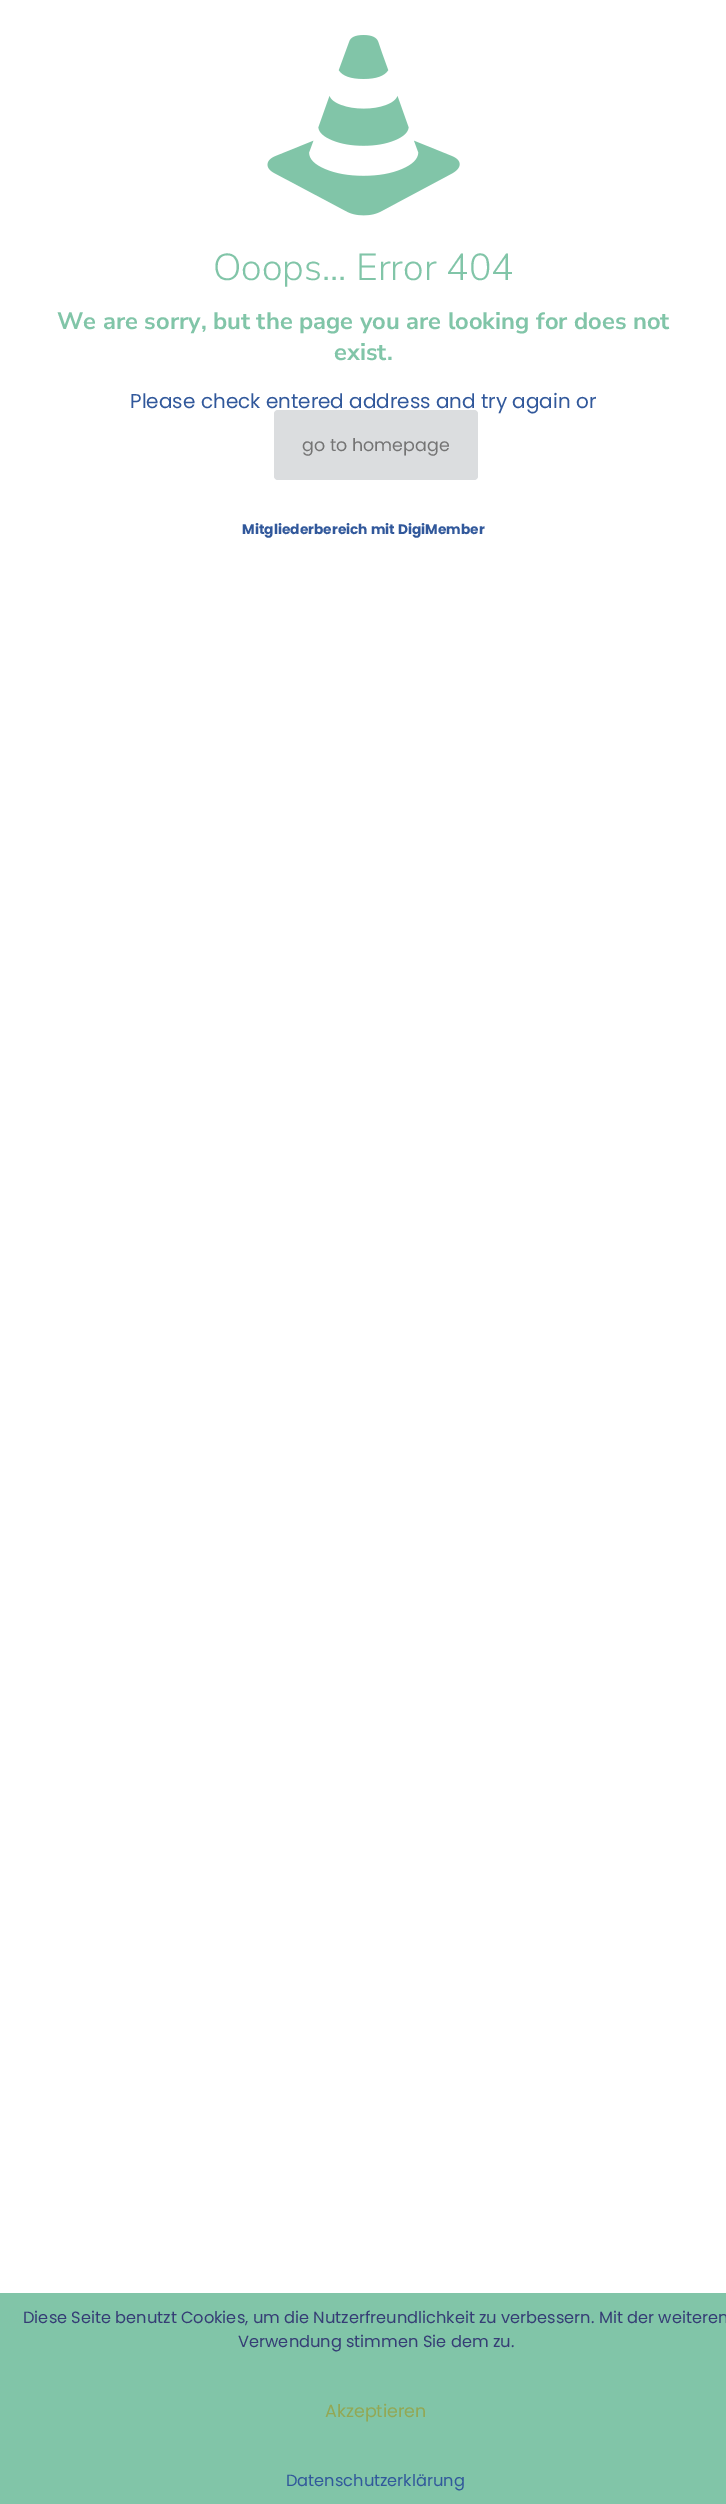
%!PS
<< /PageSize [726 2504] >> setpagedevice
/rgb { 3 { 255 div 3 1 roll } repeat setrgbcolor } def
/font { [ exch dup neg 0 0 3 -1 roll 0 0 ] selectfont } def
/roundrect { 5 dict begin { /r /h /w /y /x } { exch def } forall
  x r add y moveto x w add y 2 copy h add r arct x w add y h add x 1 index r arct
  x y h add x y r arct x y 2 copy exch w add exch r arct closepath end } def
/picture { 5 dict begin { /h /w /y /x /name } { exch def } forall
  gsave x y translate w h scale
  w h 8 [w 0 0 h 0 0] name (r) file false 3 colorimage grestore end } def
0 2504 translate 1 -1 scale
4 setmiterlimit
255 255 255 rgb
0 0 726 2504 rectfill
(img/1.rgb) 267 35 193 181 picture
129 197 168 rgb
0 2293 726 211 rectfill
/NunitoSans-Light 37.5 font
213 280 moveto (Ooops... Error 404) show
/NunitoSans-Bold 23.75 font
57 329 moveto (We are sorry, but the page you are looking for does not) show
334 360 moveto (exist.) show
/Poppins-Regular 20 font
49 88 155 rgb
130 408 moveto (Please check entered address and try again or) show
219 221 223 rgb
274 410 204 70 4 roundrect fill
/Poppins-Regular 17.5 font
116 116 116 rgb
302 451 moveto (go to homepage) show
/Poppins-Bold 13.75 font
49 88 155 rgb
242 534 moveto (Mitgliederbereich mit DigiMember) show
/Poppins-Regular 16.25 font
53 61 117 rgb
23 2323 moveto (Diese Seite benutzt Cookies, um die Nutzerfreundlichkeit zu verbessern. Mit der weiteren) show
238 2347 moveto (Verwendung stimmen Sie dem zu.) show
/Poppins-Regular 17.5 font
147 168 84 rgb
325 2417 moveto (Akzeptieren) show
/Poppins-Regular 16.25 font
49 88 155 rgb
286 2486 moveto (Datenschutzerklärung) show
showpage
